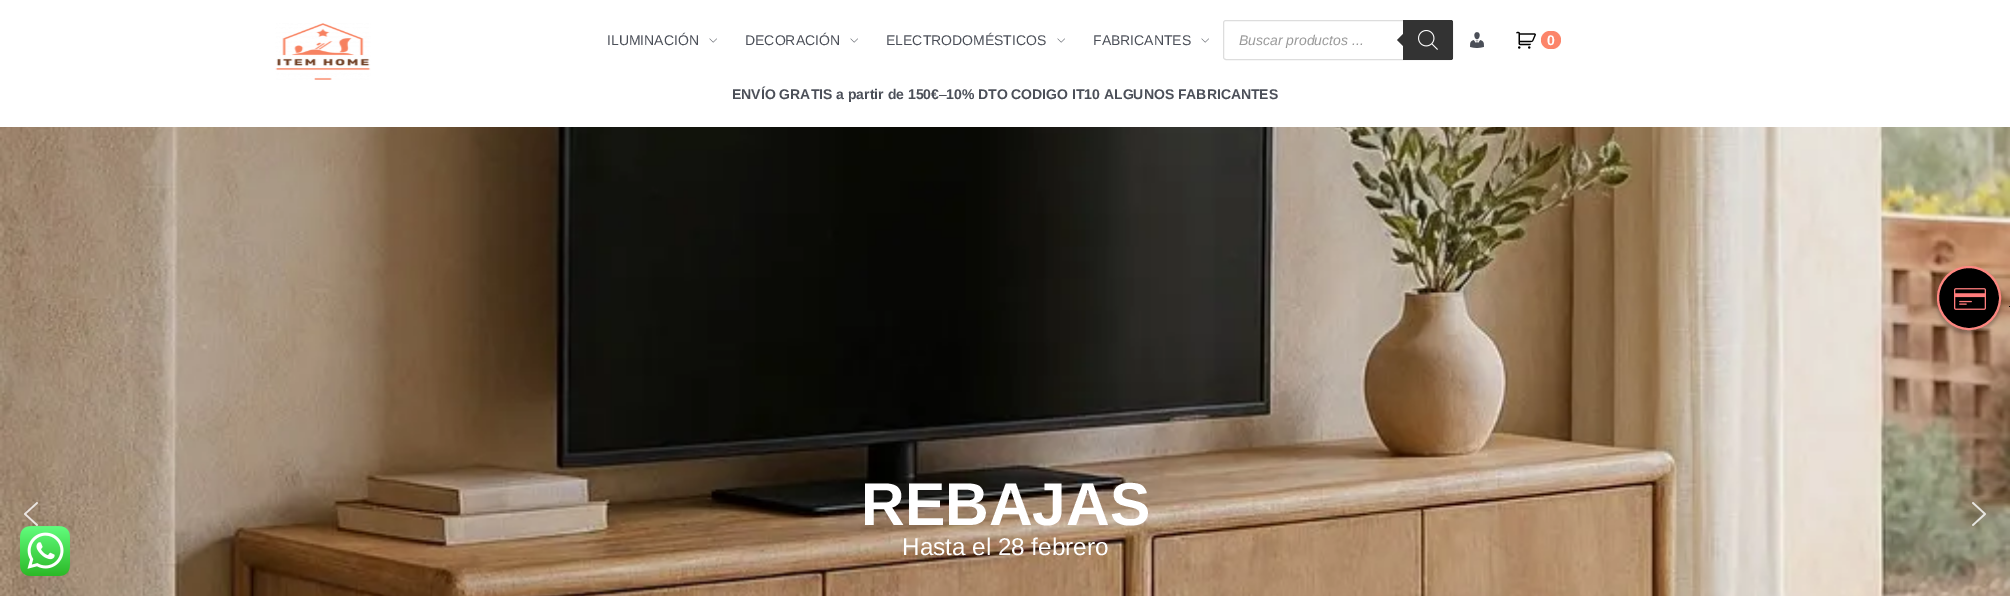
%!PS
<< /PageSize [2010 596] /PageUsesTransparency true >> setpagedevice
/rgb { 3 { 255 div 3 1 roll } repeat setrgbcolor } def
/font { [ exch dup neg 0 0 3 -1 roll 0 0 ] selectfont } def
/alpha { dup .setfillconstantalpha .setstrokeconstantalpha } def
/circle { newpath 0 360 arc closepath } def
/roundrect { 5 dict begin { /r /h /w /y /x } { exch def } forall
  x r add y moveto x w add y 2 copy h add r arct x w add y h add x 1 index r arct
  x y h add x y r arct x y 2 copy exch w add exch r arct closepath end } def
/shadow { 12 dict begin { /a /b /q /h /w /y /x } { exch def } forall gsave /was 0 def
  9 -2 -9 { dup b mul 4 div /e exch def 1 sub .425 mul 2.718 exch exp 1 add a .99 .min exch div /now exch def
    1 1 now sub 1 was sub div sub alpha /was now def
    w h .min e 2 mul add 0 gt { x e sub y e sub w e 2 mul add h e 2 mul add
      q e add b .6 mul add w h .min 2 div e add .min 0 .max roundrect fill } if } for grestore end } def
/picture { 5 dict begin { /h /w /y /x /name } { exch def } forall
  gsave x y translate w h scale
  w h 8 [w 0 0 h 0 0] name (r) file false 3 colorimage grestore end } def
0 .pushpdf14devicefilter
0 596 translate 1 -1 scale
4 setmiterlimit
255 255 255 rgb
0 0 2010 596 rectfill
(img/1.rgb) 275 23 96 57 picture
(img/2.rgb) 709 38 8 5 picture
(img/2.rgb) 850 38 8 5 picture
(img/2.rgb) 1057 38 8 5 picture
(img/2.rgb) 1201 38 8 5 picture
221 221 221 rgb
1223.5 20.5 229 39 2.5 roundrect stroke
51 51 51 rgb
1403 20 moveto 1451 20 lineto 1452 20 1453 21 1453 22 curveto 1453 58 lineto 1453 59 1452 60 1451 60 curveto 1403 60 lineto closepath fill
1405 32 moveto 1405 48 lineto 1397 40 lineto closepath fill
(img/3.rgb) 1418 30 20 20 picture
(img/4.rgb) 1470 32 14 16 picture
(img/5.rgb) 1516 31 20 18 picture
252 133 106 rgb
1541 31 20 18 9 roundrect fill
(img/7.rgb) 0 127 2010 469 picture
(img/6.rgb) 24 502 14 24 picture
(img/8.rgb) 1972 502 14 24 picture
0 0 0 rgb
1937 270 64 64 32 2 0.25 shadow
1969 298 31 circle gsave fill grestore
254 134 128 rgb
2 setlinewidth
stroke
(img/9.rgb) 1954 288 32 22 picture
0 0 0 rgb
2009 306 1 1 rectfill
(img/10.rgb) 20 526 50 50 picture
/LiberationSans-Regular 14 font
75 79 88 rgb
[
  [(ILUMINACIÓN) 607 45]
  [(DECORACIÓN) 745 45]
  [(ELECTRODOMÉSTICOS) 886 45]
  [(FABRICANTES) 1093 45]
] { aload pop moveto show } forall
/LiberationSans-Italic 14 font
153 153 153 rgb
1239 45 moveto (Buscar productos ...) show
/LiberationSans-Bold 14 font
255 255 255 rgb
1547 45 moveto (0) show
75 79 88 rgb
732 99 moveto (ENVÍO GRATIS a partir de 150€) show
/LiberationSans-Regular 14 font
939 99 moveto (–) show
/LiberationSans-Bold 14 font
946 99 moveto (10% DTO CODIGO IT10 ALGUNOS FABRICANTES) show
/LiberationSans-Bold 60.5 font
255 255 255 rgb
861 525 moveto (REBAJAS) show
/LiberationSans-Regular 24.25 font
902 555 moveto (Hasta el 28 febrero) show
.poppdf14devicefilter showpage
